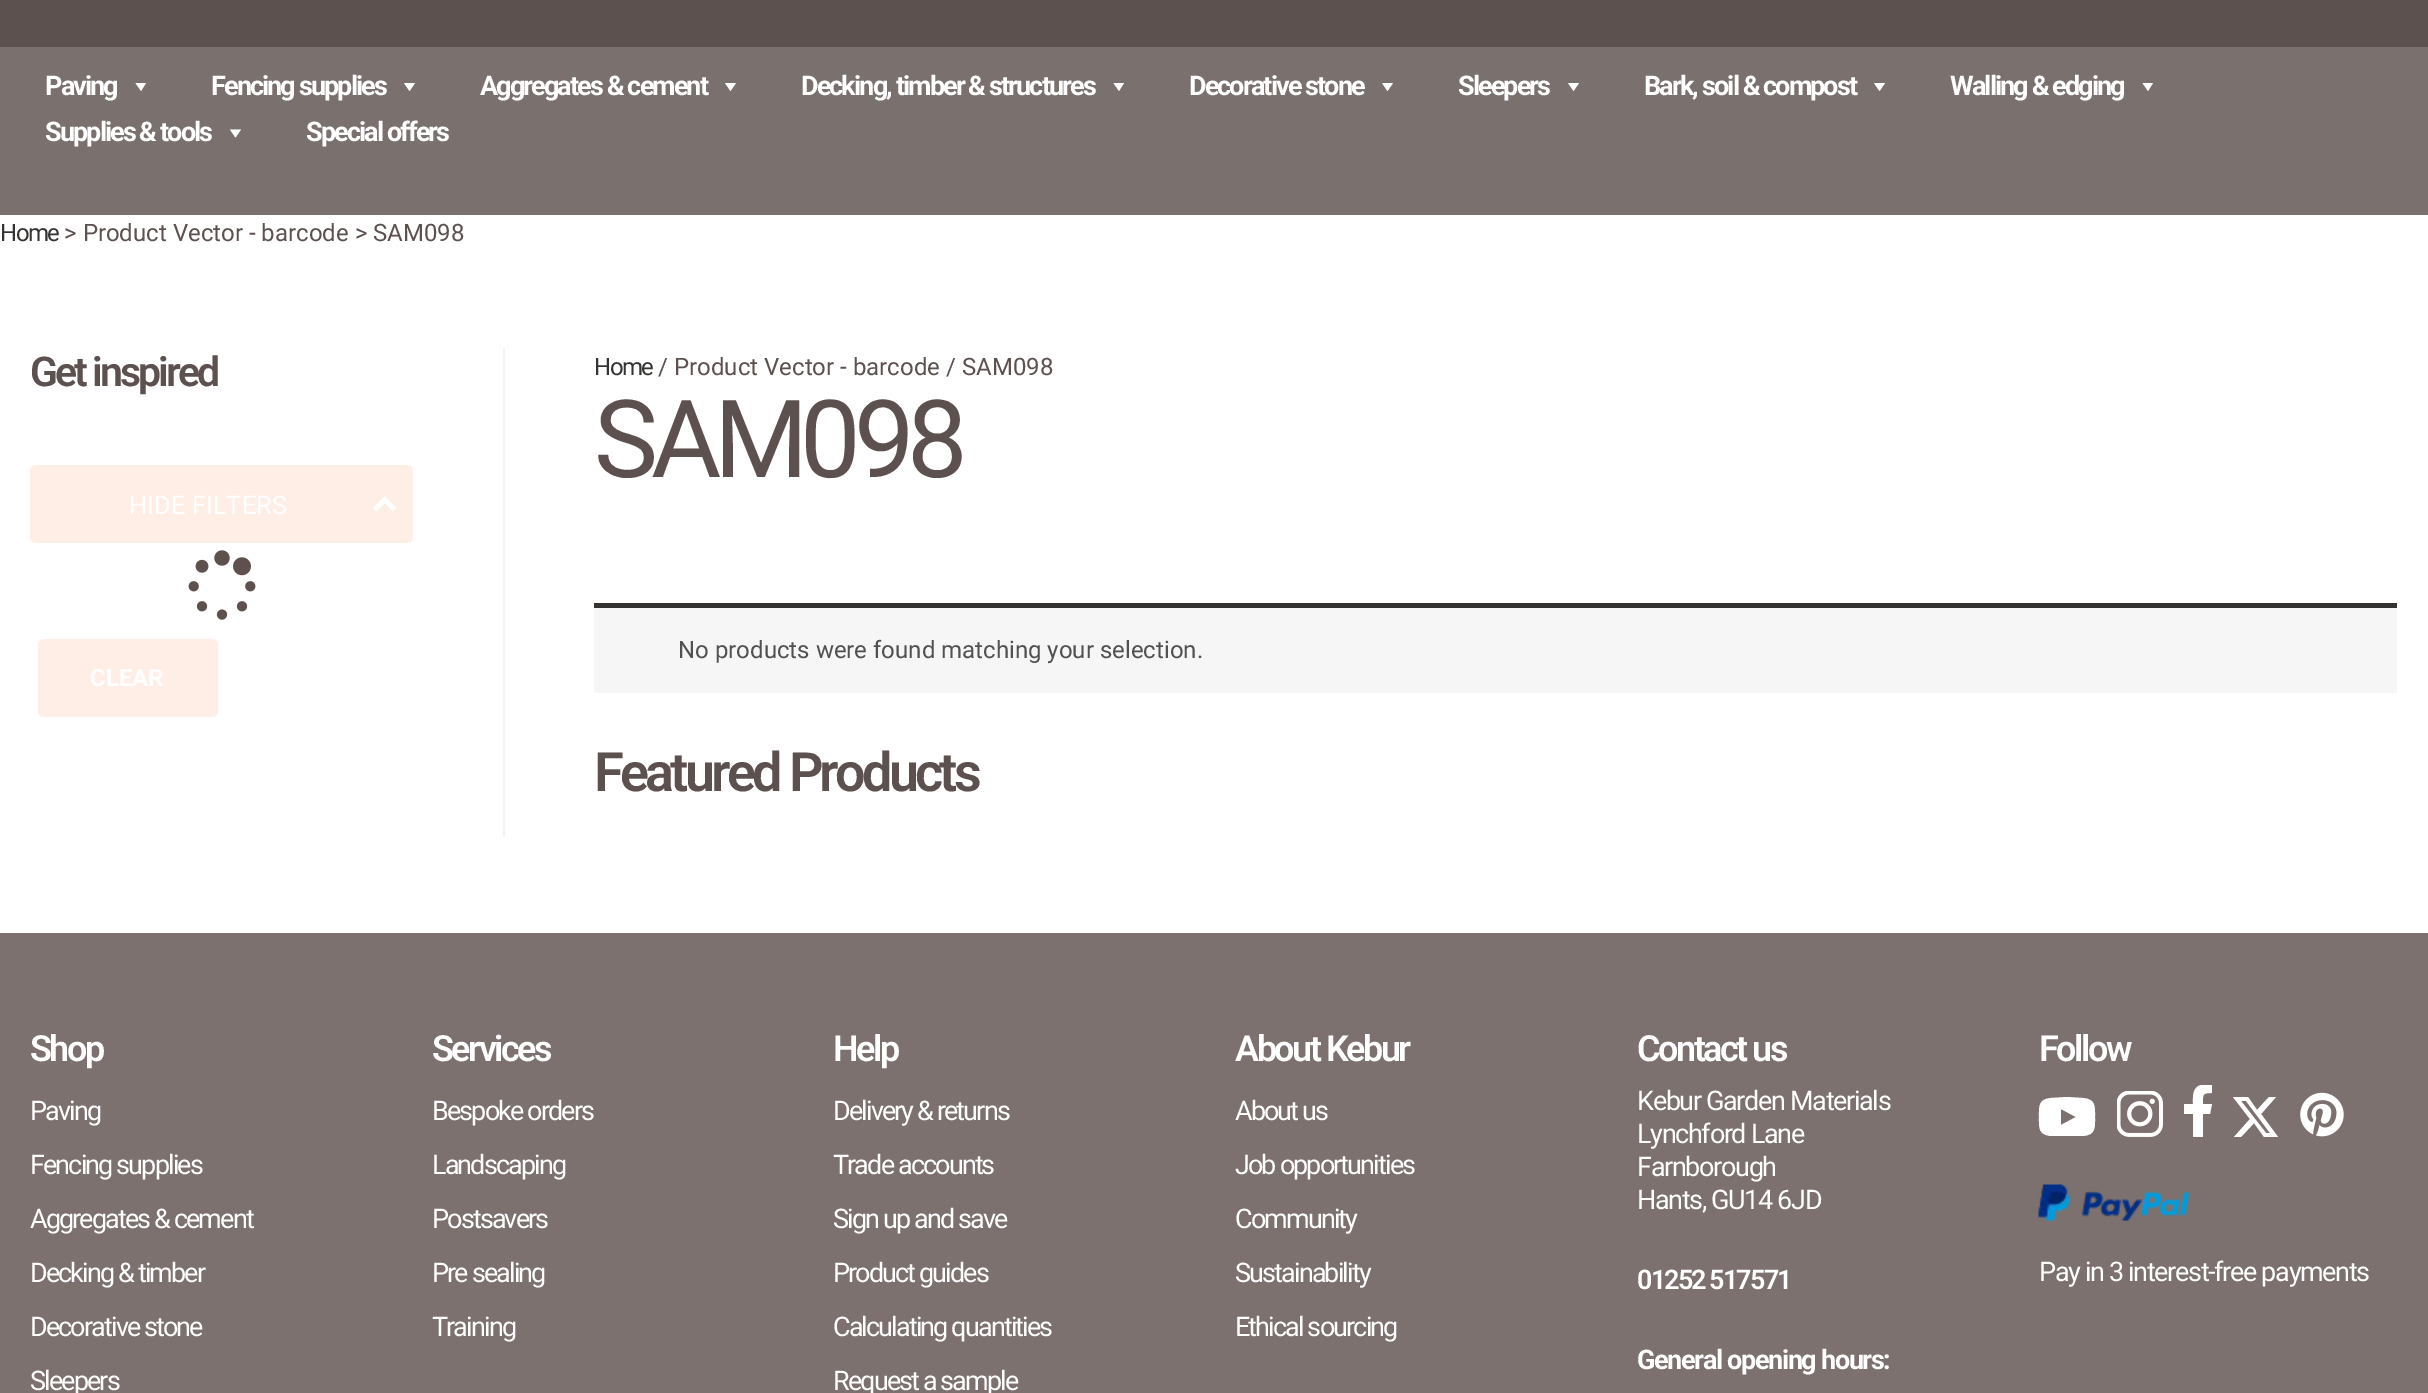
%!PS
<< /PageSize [2428 1393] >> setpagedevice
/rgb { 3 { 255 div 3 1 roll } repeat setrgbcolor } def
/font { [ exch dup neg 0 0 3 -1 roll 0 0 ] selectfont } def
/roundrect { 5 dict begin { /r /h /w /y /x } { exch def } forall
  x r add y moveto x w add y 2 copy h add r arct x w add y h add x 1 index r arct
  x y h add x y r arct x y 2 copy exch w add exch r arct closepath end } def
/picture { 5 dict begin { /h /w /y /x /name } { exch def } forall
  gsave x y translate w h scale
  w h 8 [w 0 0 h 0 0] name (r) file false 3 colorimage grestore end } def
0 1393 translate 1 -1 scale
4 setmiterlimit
255 255 255 rgb
0 0 2428 1393 rectfill
92 81 78 rgb
0 0 2428 47 rectfill
122 113 111 rgb
0 47 2428 168 rectfill
255 255 255 rgb
146 83 moveto 141 91 lineto 135.5 83 lineto closepath fill
415 83 moveto 409.5 91 lineto 404 83 lineto closepath fill
736 83 moveto 730.5 91 lineto 725 83 lineto closepath fill
1124 83 moveto 1119 91 lineto 1113.5 83 lineto closepath fill
1393 83 moveto 1387.5 91 lineto 1382 83 lineto closepath fill
1579 83 moveto 1573.5 91 lineto 1568 83 lineto closepath fill
1885 83 moveto 1879.5 91 lineto 1874 83 lineto closepath fill
2153 83 moveto 2148 91 lineto 2142.5 83 lineto closepath fill
241 129.5 moveto 235.5 137.5 lineto 230 129.5 lineto closepath fill
255 238 230 rgb
30 465 383 78 6 roundrect fill
(img/1.rgb) 373 496 24 16 picture
(img/2.rgb) 188 550 68 70 picture
38 639 180 78 6 roundrect fill
[
  [503 348 2 489 242 245 247]
  [594 608 1803 85 247 246 247]
  [594 603 1803 5 53 51 49]
  [0 933 2428 460 124 113 110]
] { aload pop rgb rectfill } forall
255 255 255 rgb
2067 1136 moveto 2051 1136 lineto 2038 1135 2039 1127 2039 1117 curveto 2039 1107 2038 1099 2051 1098 curveto 2067 1097 lineto 2083 1098 lineto 2096 1099 2095 1107 2095 1117 curveto 2095 1127 2096 1135 2083 1136 curveto closepath 2061 1109 moveto 2061 1125 lineto 2076 1117 lineto closepath fill
(img/3.rgb) 2117 1091 46 46 picture
2193 1137 moveto 2203 1137 lineto 2203 1114 lineto 2210 1114 lineto 2212 1104 lineto 2203 1104 lineto 2203 1094 2202 1093 2212 1093 curveto 2212 1085 lineto 2202 1085 lineto 2192 1086 2193 1097 2193 1104 curveto 2184 1104 lineto 2184 1114 lineto 2193 1114 lineto closepath eofill
2269 1097 moveto 2276 1097 lineto 2261 1114 lineto 2278 1137 lineto 2264 1137 lineto 2254 1123 lineto 2241 1137 lineto 2234 1137 lineto 2250 1119 lineto 2233 1097 lineto 2248 1097 lineto 2257 1110 lineto closepath 2266 1133 moveto 2270 1133 lineto 2246 1101 lineto 2241 1101 lineto closepath fill
(img/4.rgb) 2300 1092 44 45 picture
(img/5.rgb) 2038 1184 151 37 picture
/Roboto-Bold 27 font
45 95 moveto -1.9 0 (Paving) ashow
211 95 moveto -1.9 0 (Fencing supplies) ashow
480 95 moveto -1.9 0 (Aggregates & cement) ashow
801 95 moveto -1.9 0 (Decking, timber & structures) ashow
1189 95 moveto -1.9 0 (Decorative stone) ashow
1458 95 moveto -1.9 0 (Sleepers) ashow
1644 95 moveto -1.9 0 (Bark, soil & compost) ashow
1950 95 moveto -1.9 0 (Walling & edging) ashow
45 141 moveto -1.9 0 (Supplies & tools) ashow
306 141 moveto -1.9 0 (Special offers) ashow
/Roboto-Regular 24 font
53 51 49 rgb
0 241 moveto -1.5 0 (Home) ashow
92 81 78 rgb
64 241 moveto (> Product Vector - barcode > SAM098) show
/Roboto-SemiBold 41 font
30 386 moveto -2.9 0 (Get inspired) ashow
/Roboto-Regular 25.5 font
255 255 255 rgb
129 514 moveto (HIDE FILTERS) show
/Roboto-Bold 24 font
90 686 moveto (CLEAR) show
/Roboto-Regular 24 font
53 51 49 rgb
594 375 moveto -1.5 0 (Home) ashow
92 81 78 rgb
658 375 moveto (/ Product Vector - barcode / SAM098) show
/Roboto-Regular 108 font
594 477 moveto -7.5 0 (SAM098) ashow
/Roboto-Regular 24 font
81 81 81 rgb
678 658 moveto (No products were found matching your selection.) show
/Roboto-SemiBold 54 font
92 81 78 rgb
594 791 moveto -3.75 0 (Featured Products) ashow
/Roboto-SemiBold 36 font
255 255 255 rgb
30 1061 moveto -2.5 0 (Shop) ashow
/Roboto-Regular 27 font
30 1120 moveto -1.9 0 (Paving) ashow
30 1174 moveto -1.9 0 (Fencing supplies) ashow
30 1228 moveto -1.9 0 (Aggregates & cement) ashow
30 1282 moveto -1.9 0 (Decking & timber) ashow
30 1336 moveto -1.9 0 (Decorative stone) ashow
30 1390 moveto -1.9 0 (Sleepers) ashow
/Roboto-SemiBold 36 font
432 1061 moveto -2.5 0 (Services) ashow
/Roboto-Regular 27 font
432 1120 moveto -1.9 0 (Bespoke orders) ashow
432 1174 moveto -1.9 0 (Landscaping) ashow
432 1228 moveto -1.9 0 (Postsavers) ashow
432 1282 moveto -1.9 0 (Pre sealing) ashow
432 1336 moveto -1.9 0 (Training) ashow
/Roboto-SemiBold 36 font
833 1061 moveto -2.5 0 (Help) ashow
/Roboto-Regular 27 font
833 1120 moveto -1.9 0 (Delivery & returns) ashow
833 1174 moveto -1.9 0 (Trade accounts) ashow
833 1228 moveto -1.9 0 (Sign up and save) ashow
833 1282 moveto -1.9 0 (Product guides) ashow
833 1336 moveto -1.9 0 (Calculating quantities) ashow
833 1390 moveto -1.9 0 (Request a sample) ashow
/Roboto-SemiBold 36 font
1235 1061 moveto -2.5 0 (About Kebur) ashow
/Roboto-Regular 27 font
1235 1120 moveto -1.9 0 (About us) ashow
1235 1174 moveto -1.9 0 (Job opportunities) ashow
1235 1228 moveto -1.9 0 (Community) ashow
1235 1282 moveto -1.9 0 (Sustainability) ashow
1235 1336 moveto -1.9 0 (Ethical sourcing) ashow
/Roboto-SemiBold 36 font
1637 1061 moveto -2.5 0 (Contact us) ashow
/Roboto-Regular 27 font
1637 1110 moveto -1.35 0 (Kebur Garden Materials) ashow
1637 1143 moveto -1.35 0 (Lynchford Lane) ashow
1637 1176 moveto -1.35 0 (Farnborough) ashow
1637 1209 moveto -1.35 0 (Hants, GU14 6JD) ashow
/Roboto-SemiBold 27 font
1637 1289 moveto -1.9 0 (01252 517571) ashow
/Roboto-Bold 27 font
1637 1369 moveto -1.35 0 (General opening hours:) ashow
/Roboto-SemiBold 36 font
2039 1061 moveto -2.5 0 (Follow) ashow
/Roboto-Regular 27 font
2039 1281 moveto -1.35 0 (Pay in 3 interest-free payments) ashow
showpage
